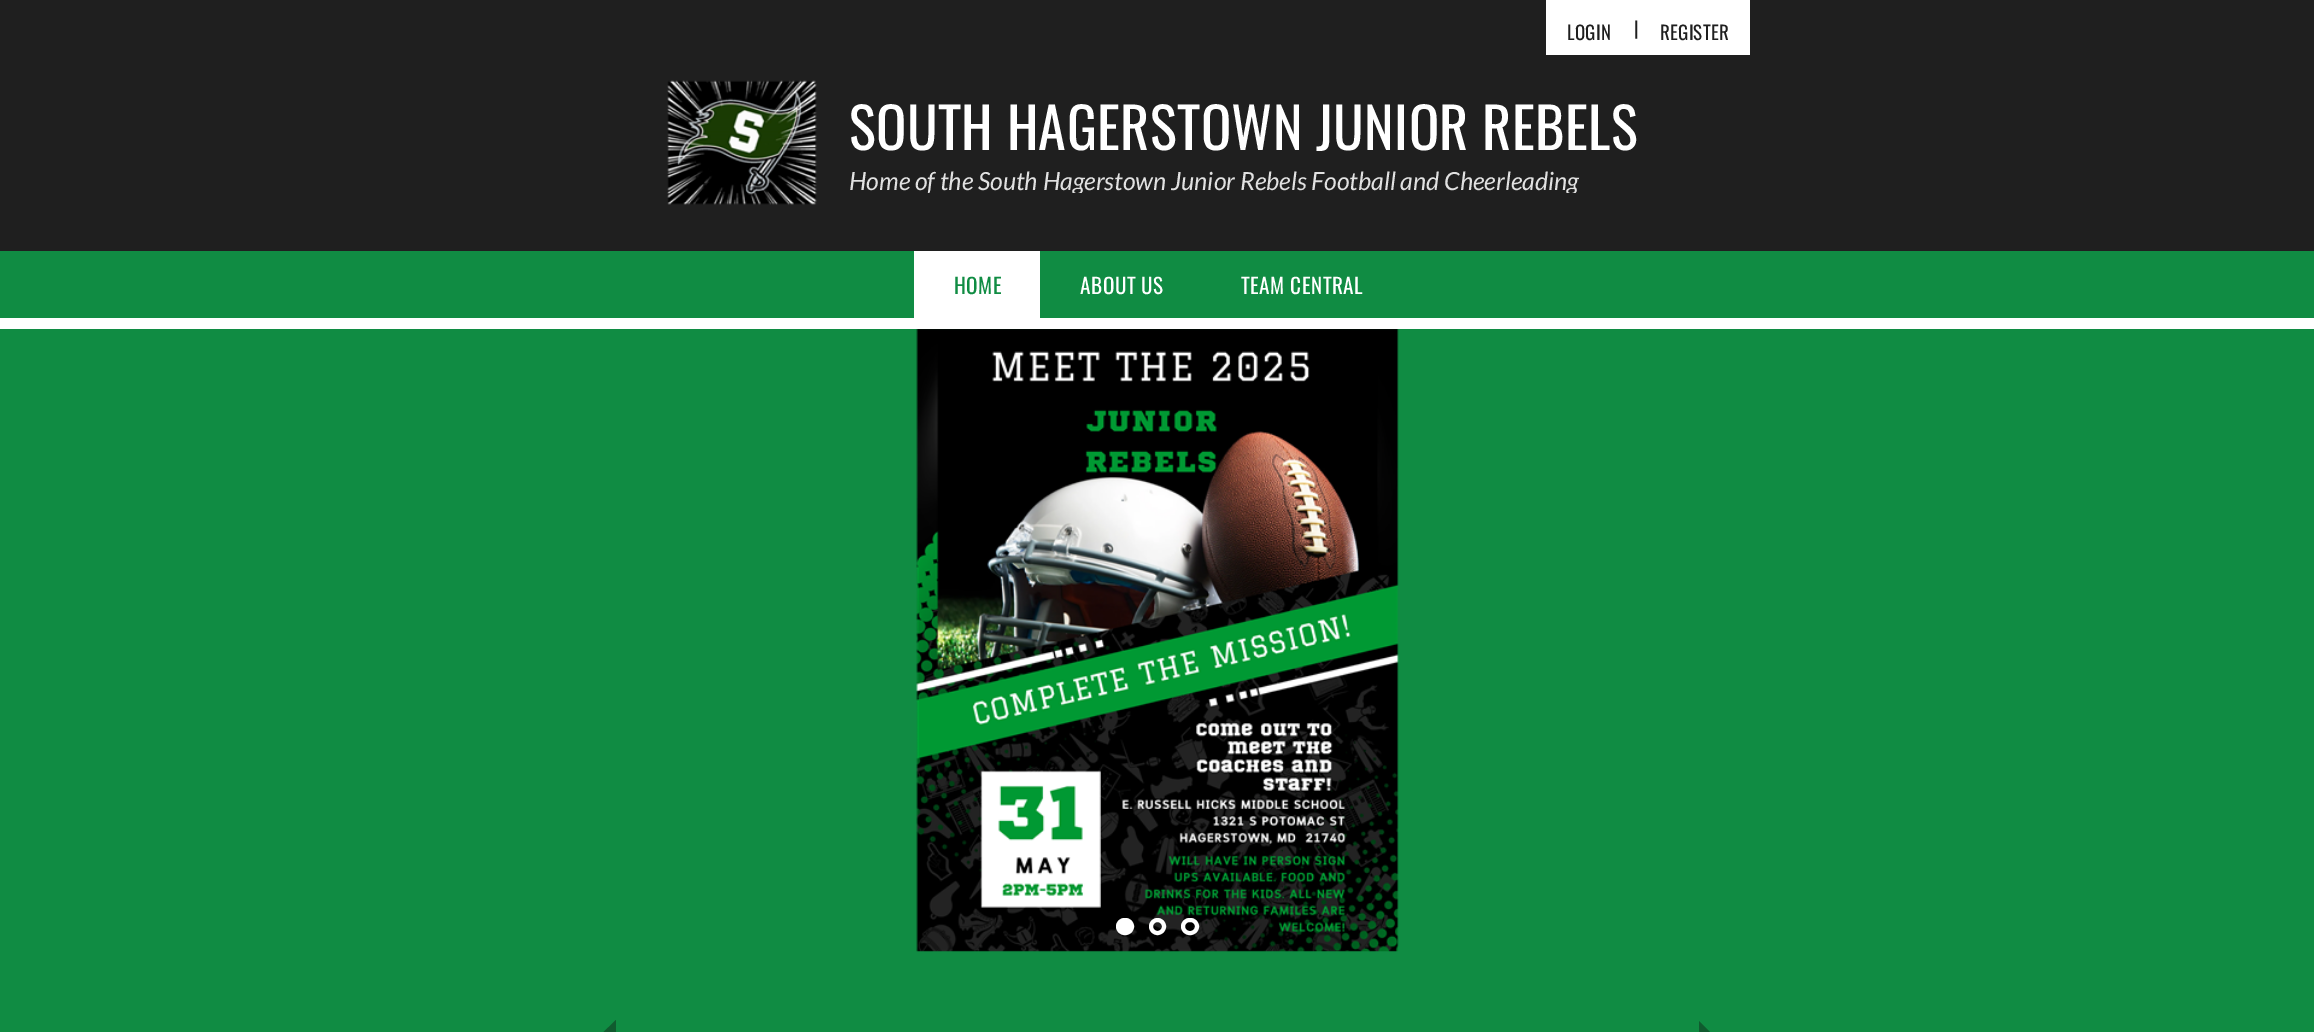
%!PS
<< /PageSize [2314 1032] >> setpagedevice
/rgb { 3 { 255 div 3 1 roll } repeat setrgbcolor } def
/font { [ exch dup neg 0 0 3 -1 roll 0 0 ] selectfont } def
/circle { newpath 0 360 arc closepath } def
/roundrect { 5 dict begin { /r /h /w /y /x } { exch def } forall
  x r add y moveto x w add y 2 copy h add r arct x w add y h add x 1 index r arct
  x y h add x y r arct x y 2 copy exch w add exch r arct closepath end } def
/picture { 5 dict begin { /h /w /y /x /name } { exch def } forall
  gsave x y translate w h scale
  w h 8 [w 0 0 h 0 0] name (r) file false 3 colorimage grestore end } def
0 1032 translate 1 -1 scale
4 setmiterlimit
31 31 31 rgb
0 0 2314 1032 rectfill
255 255 255 rgb
1546 0 204 55 rectfill
(img/1.rgb) 667 80 150 125 picture
[
  [0 251 2314 67 16 140 67]
  [0 318 2314 11 255 255 255]
  [914 251 126 67 255 255 255]
] { aload pop rgb rectfill } forall
16 140 67 rgb
0 329 moveto 0 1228 lineto 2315 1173 lineto 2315 329 lineto closepath fill
(img/2.rgb) 916 329 483 623 picture
255 255 255 rgb
1118 920 14 13 6.5 roundrect gsave fill grestore
4 setlinewidth
stroke
1157.5 926.5 6.5 circle stroke
1183 920 14 13 6.5 roundrect stroke
16 91 47 rgb
616 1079 moveto 586 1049 lineto 616 1020 lineto 616 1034 lineto 602 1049 lineto 616 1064 lineto closepath fill
1699 1021 moveto 1729 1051 lineto 1699 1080 lineto 1699 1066 lineto 1713 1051 lineto 1699 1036 lineto closepath fill
/Oswald-Regular 19 font
31 31 31 rgb
1567 40 moveto 0.25 0 (LOGIN) ashow
1634 36 moveto (|) show
1660 40 moveto 0.25 0 (REGISTER) ashow
/Oswald-Regular 56.25 font
255 255 255 rgb
849 150 moveto 0.4 0 (SOUTH HAGERSTOWN JUNIOR REBELS) ashow
gsave
850 153 788 40 rectclip
/Lato-Italic 25 font
225 225 225 rgb
849 190 moveto (Home of the South Hagerstown Junior Rebels Football and Cheerleading) show
grestore
/Oswald-Regular 21.25 font
16 140 67 rgb
954 294 moveto 0.5 0 (HOME) ashow
255 255 255 rgb
1080 294 moveto 0.5 0 (ABOUT US) ashow
1241 294 moveto 0.5 0 (TEAM CENTRAL) ashow
showpage
